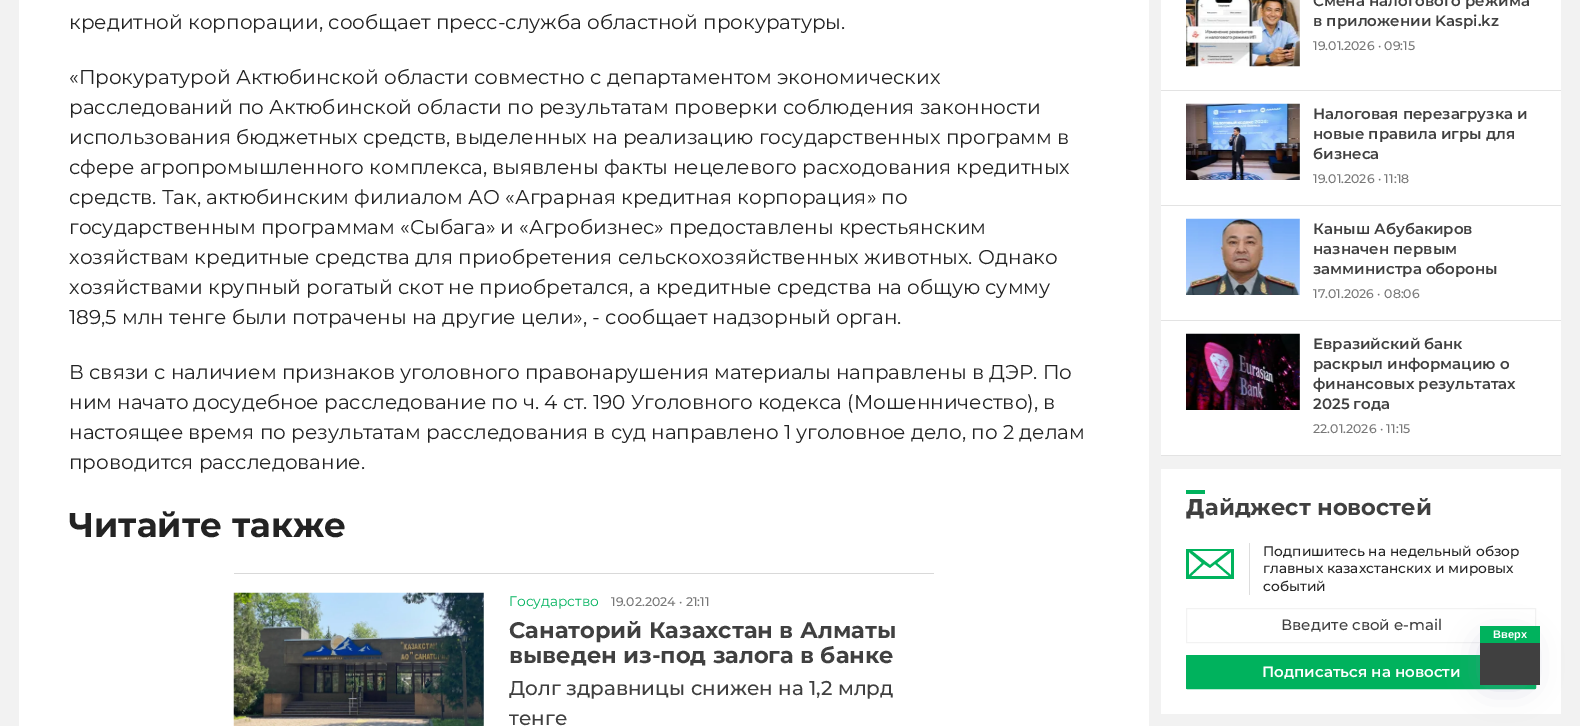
%!PS
<< /PageSize [1580 726] /PageUsesTransparency true >> setpagedevice
/rgb { 3 { 255 div 3 1 roll } repeat setrgbcolor } def
/font { [ exch dup neg 0 0 3 -1 roll 0 0 ] selectfont } def
/alpha { dup .setfillconstantalpha .setstrokeconstantalpha } def
/roundrect { 5 dict begin { /r /h /w /y /x } { exch def } forall
  x r add y moveto x w add y 2 copy h add r arct x w add y h add x 1 index r arct
  x y h add x y r arct x y 2 copy exch w add exch r arct closepath end } def
/shadow { 12 dict begin { /a /b /q /h /w /y /x } { exch def } forall gsave /was 0 def
  9 -2 -9 { dup b mul 4 div /e exch def 1 sub .425 mul 2.718 exch exp 1 add a .99 .min exch div /now exch def
    1 1 now sub 1 was sub div sub alpha /was now def
    w h .min e 2 mul add 0 gt { x e sub y e sub w e 2 mul add h e 2 mul add
      q e add b .6 mul add w h .min 2 div e add .min 0 .max roundrect fill } if } for grestore end } def
/picture { 5 dict begin { /h /w /y /x /name } { exch def } forall
  gsave x y translate w h scale
  w h 8 [w 0 0 h 0 0] name (r) file false 3 colorimage grestore end } def
0 .pushpdf14devicefilter
0 726 translate 1 -1 scale
4 setmiterlimit
242 242 242 rgb
0 0 1580 726 rectfill
255 255 255 rgb
19 0 1130 726 rectfill
217 217 217 rgb
234 573 700 1 rectfill
(img/1.rgb) 233 592 251 134 picture
255 255 255 rgb
1161 0 400 455 rectfill
227 227 227 rgb
1161 90 400 1 rectfill
(img/2.rgb) 1186 0 114 67 picture
1161 205 400 1 rectfill
(img/3.rgb) 1186 103 114 77 picture
1161 320 400 1 rectfill
(img/4.rgb) 1186 218 114 77 picture
1161 455 400 1 rectfill
(img/5.rgb) 1186 333 114 77 picture
255 255 255 rgb
1161 469 400 245 rectfill
0 178 93 rgb
1186 490 19 4 rectfill
0 179 93 rgb
1210 568 moveto 1204 564 lineto 1191 576 lineto 1229 576 lineto 1215 564 lineto closepath 1217 563 moveto 1231 575 lineto 1231 552 lineto closepath 1234 579 moveto 1186 579 lineto 1186 549 lineto 1234 549 lineto closepath 1228 551 moveto 1192 551 lineto 1210 565 lineto closepath 1202 563 moveto 1189 552 lineto 1189 575 lineto closepath eofill
221 221 221 rgb
1249 543 1 52 rectfill
242 242 242 rgb
1186.5 608.5 349 34 rectstroke
0 178 93 rgb
1186.5 655.5 349 33 0.5 roundrect gsave fill grestore
stroke
132 128 177 rgb
1480 638 50 50 9 15.5 0.28 shadow
0 178 93 rgb
1480 626 60 17 rectfill
64 64 64 rgb
1480 643 60 42 rectfill
/Montserrat-Regular 20 font
35 35 35 rgb
[
  [(кредитной корпорации, сообщает пресс-служба областной прокуратуры.) 69 29]
  [(«Прокуратурой Актюбинской области совместно c департаментом экономических) 69 84]
  [(расследований по Актюбинской области по результатам проверки соблюдения законности) 69 114]
  [(использования бюджетных средств, выделенных на реализацию государственных программ в) 69 144]
  [(сфере агропромышленного комплекса, выявлены факты нецелевого расходования кредитных) 69 174]
  [(средств. Так, актюбинским филиалом АО «Аграрная кредитная корпорация» по) 69 204]
  [(государственным программам «Сыбага» и «Агробизнес» предоставлены крестьянским) 69 234]
  [(хозяйствам кредитные средства для приобретения сельскохозяйственных животных. Однако) 69 264]
  [(хозяйствами крупный рогатый скот не приобретался, а кредитные средства на общую сумму) 69 294]
  [(189,5 млн тенге были потрачены на другие цели», - сообщает надзорный орган.) 69 324]
  [(В связи с наличием признаков уголовного правонарушения материалы направлены в ДЭР. По) 69 379]
  [(ним начато досудебное расследование по ч. 4 ст. 190 Уголовного кодекса \(Мошенничество\), в) 69 409]
  [(настоящее время по результатам расследования в суд направлено 1 уголовное дело, по 2 делам) 69 439]
  [(проводится расследование.) 69 469]
] { aload pop moveto show } forall
/Montserrat-Bold 34.25 font
69 537 moveto (Читайте также) show
/Montserrat-Regular 13.75 font
0 178 93 rgb
509 606 moveto (Государство) show
/Montserrat-Medium 12.5 font
119 119 119 rgb
611 606 moveto (19.02.2024 · 21:11) show
/Montserrat-Bold 22.5 font
64 64 64 rgb
509 638 moveto (Санаторий Казахстан в Алматы) show
509 663 moveto (выведен из-под залога в банке) show
/Montserrat-Medium 20 font
509 695 moveto (Долг здравницы снижен на 1,2 млрд) show
509 725 moveto (тенге) show
/Montserrat-SemiBold 15 font
1313 6 moveto (Смена налогового режима) show
1313 26 moveto (в приложении Kaspi.kz) show
/Montserrat-Medium 12.5 font
119 119 119 rgb
1313 50 moveto (19.01.2026 · 09:15) show
/Montserrat-SemiBold 15 font
64 64 64 rgb
[
  [(Налоговая перезагрузка и) 1313 119]
  [(новые правила игры для) 1313 139]
  [(бизнеса) 1313 159]
] { aload pop moveto show } forall
/Montserrat-Medium 12.5 font
119 119 119 rgb
1313 183 moveto (19.01.2026 · 11:18) show
/Montserrat-SemiBold 15 font
64 64 64 rgb
[
  [(Каныш Абубакиров) 1313 234]
  [(назначен первым) 1313 254]
  [(замминистра обороны) 1313 274]
] { aload pop moveto show } forall
/Montserrat-Medium 12.5 font
119 119 119 rgb
1313 298 moveto (17.01.2026 · 08:06) show
/Montserrat-SemiBold 15 font
64 64 64 rgb
[
  [(Евразийский банк) 1313 349]
  [(раскрыл информацию о) 1313 369]
  [(финансовых результатах) 1313 389]
  [(2025 года) 1313 409]
] { aload pop moveto show } forall
/Montserrat-Medium 12.5 font
119 119 119 rgb
1313 433 moveto (22.01.2026 · 11:15) show
/NotoSans-Black 22.5 font
64 64 64 rgb
1186 515 moveto (Д) show
/Montserrat-Bold 22.5 font
1205 515 moveto (айджест новостей) show
/Montserrat-Medium 13.75 font
35 35 35 rgb
[
  [(Подпишитесь на недельный обзор) 1263 556]
  [(главных казахстанских и мировых) 1263 573]
  [(событий) 1263 591]
] { aload pop moveto show } forall
/Montserrat-Medium 15 font
64 64 64 rgb
1281 630 moveto (Введите свой e-mail) show
/Montserrat-SemiBold 15 font
255 255 255 rgb
1262 677 moveto (Подписаться на новости) show
/LiberationSans-Bold 11 font
1493 638 moveto (Вверх) show
.poppdf14devicefilter showpage
